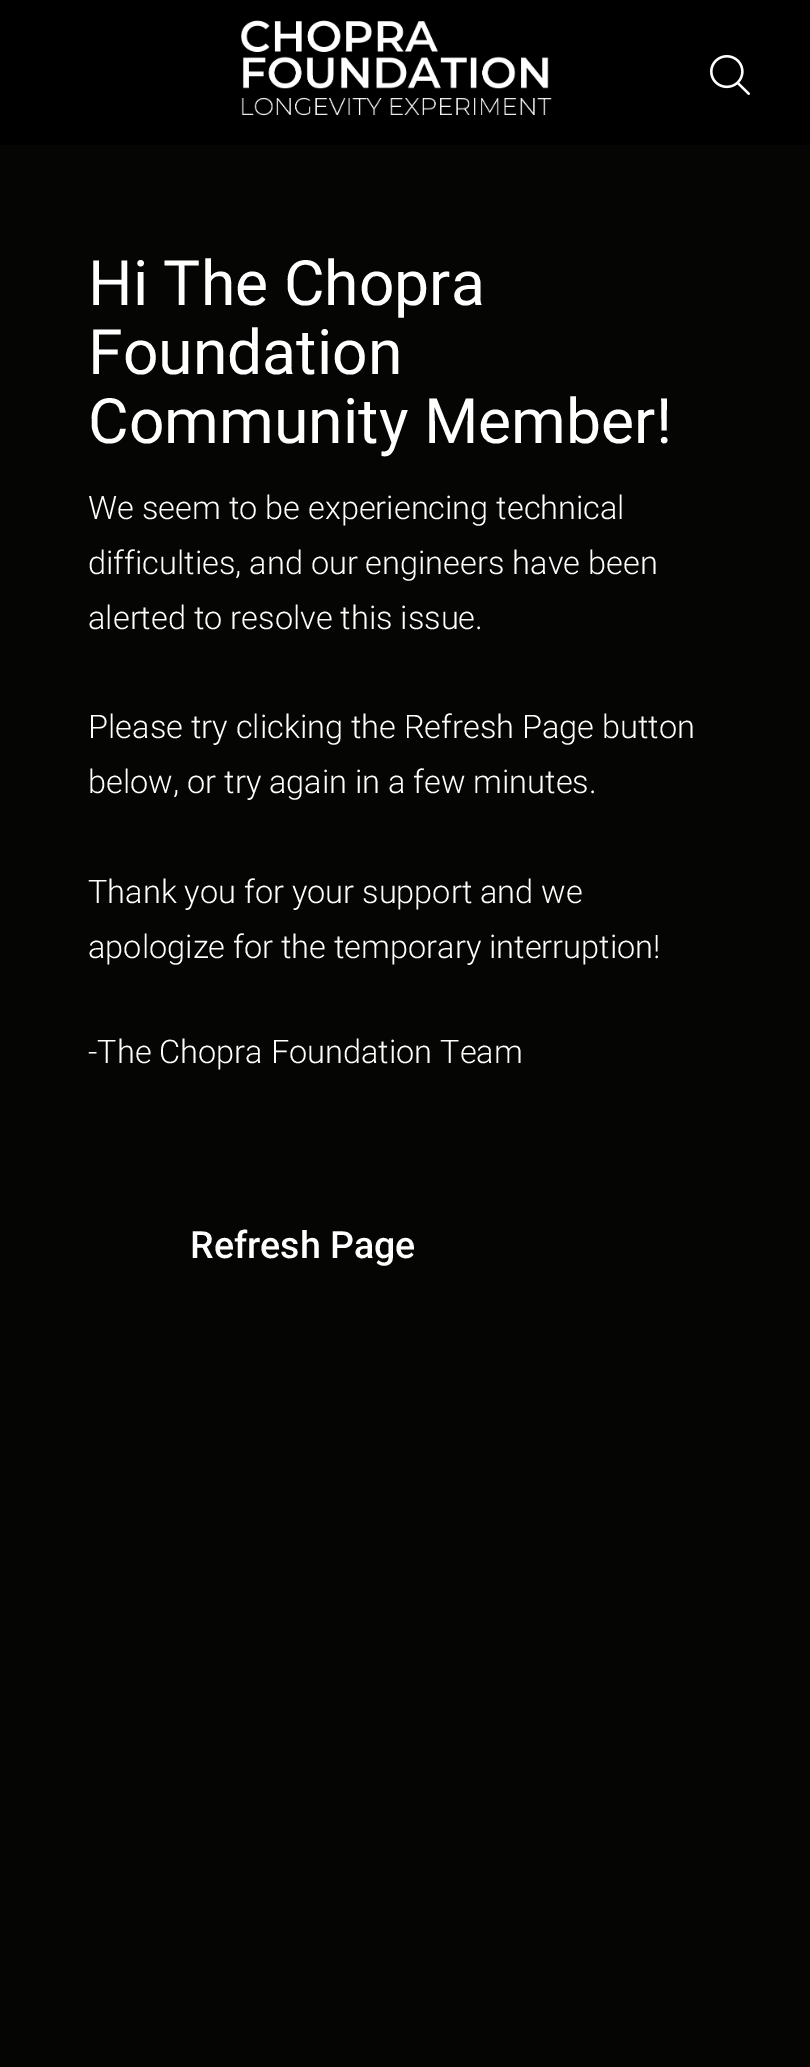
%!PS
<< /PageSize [810 2067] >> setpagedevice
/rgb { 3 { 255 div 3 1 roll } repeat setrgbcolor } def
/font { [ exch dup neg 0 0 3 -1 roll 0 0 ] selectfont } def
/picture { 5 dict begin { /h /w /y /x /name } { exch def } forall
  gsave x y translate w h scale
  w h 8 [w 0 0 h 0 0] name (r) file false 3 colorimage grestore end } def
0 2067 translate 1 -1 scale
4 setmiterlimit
5 5 4 rgb
0 0 810 2067 rectfill
0 0 0 rgb
0 0 810 145 rectfill
(img/1.rgb) 241 20 311 96 picture
(img/2.rgb) 710 55 40 40 picture
/Roboto-Regular 62.5 font
255 255 255 rgb
[
  [(Hi The Chopra) 88 305]
  [(Foundation) 88 374]
  [(Community Member!) 88 443]
] { aload pop moveto show } forall
/Roboto-Light 32.5 font
[
  [(We seem to be experiencing technical) 88 519]
  [(difficulties, and our engineers have been) 88 574]
  [(alerted to resolve this issue.) 88 629]
  [(Please try clicking the Refresh Page button) 88 738]
  [(below, or try again in a few minutes.) 88 793]
  [(Thank you for your support and we) 88 903]
  [(apologize for the temporary interruption!) 88 958]
  [(-The Chopra Foundation Team) 88 1063]
] { aload pop moveto show } forall
/Roboto-Medium 37.5 font
190 1258 moveto (Refresh Page) show
showpage
